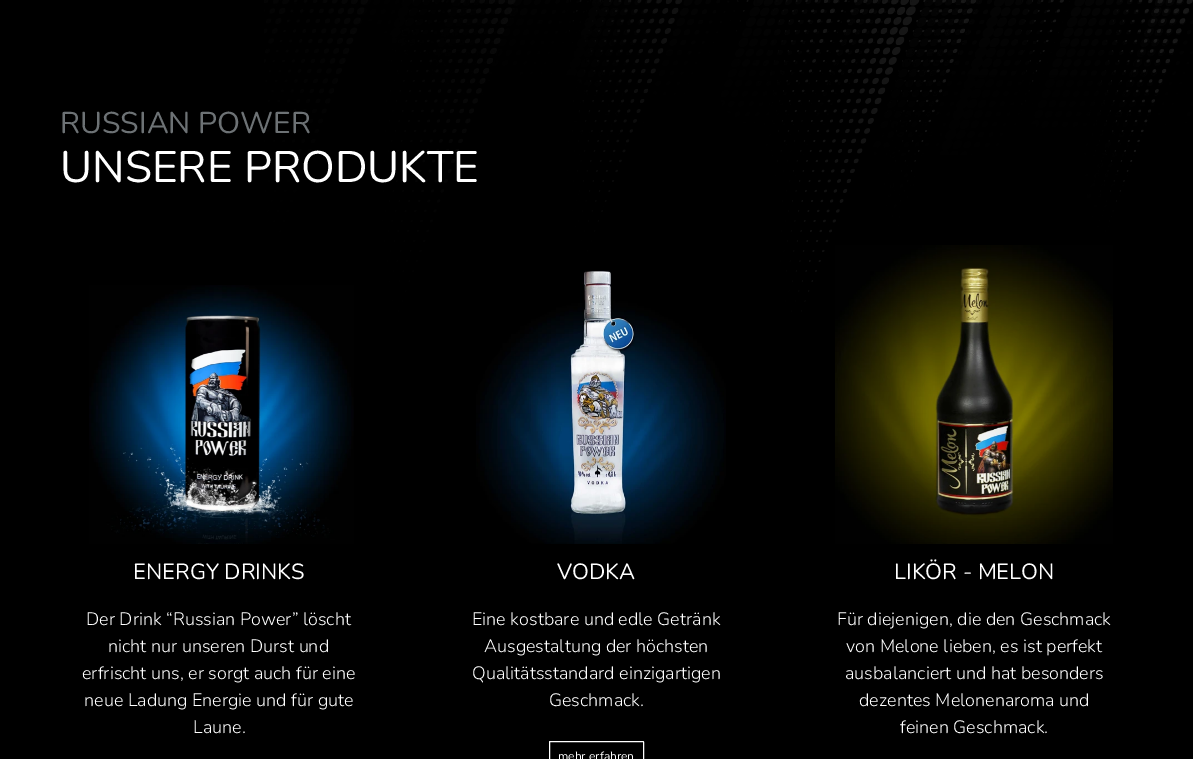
%!PS
<< /PageSize [1193 759] >> setpagedevice
/rgb { 3 { 255 div 3 1 roll } repeat setrgbcolor } def
/font { [ exch dup neg 0 0 3 -1 roll 0 0 ] selectfont } def
/roundrect { 5 dict begin { /r /h /w /y /x } { exch def } forall
  x r add y moveto x w add y 2 copy h add r arct x w add y h add x 1 index r arct
  x y h add x y r arct x y 2 copy exch w add exch r arct closepath end } def
/picture { 5 dict begin { /h /w /y /x /name } { exch def } forall
  gsave x y translate w h scale
  w h 8 [w 0 0 h 0 0] name (r) file false 3 colorimage grestore end } def
0 759 translate 1 -1 scale
4 setmiterlimit
0 0 0 rgb
0 0 1193 759 rectfill
(img/1.rgb) 264 0 929 312 picture
(img/2.rgb) 89 285 265 259 picture
(img/3.rgb) 476 270 250 274 picture
255 255 255 rgb
549.5 741.5 94 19 0.5 roundrect stroke
(img/4.rgb) 835 245 278 299 picture
/Nunito-Regular 30 font
109 114 117 rgb
60 133 moveto (RUSSIAN POWER) show
/Nunito-Regular 44 font
255 255 255 rgb
60 182 moveto (UNSERE PRODUKTE) show
/Nunito-Regular 22 font
133 579 moveto (ENERGY DRINKS) show
/Nunito-Light 18 font
[
  [(Der Drink “Russian Power” löscht) 86 625]
  [(nicht nur unseren Durst und) 108 652]
  [(erfrischt uns, er sorgt auch für eine) 82 679]
  [(neue Ladung Energie und für gute) 84 706]
  [(Laune.) 193 733]
] { aload pop moveto show } forall
/Nunito-Regular 22 font
557 579 moveto (VODKA) show
/Nunito-Light 18 font
[
  [(Eine kostbare und edle Getränk) 472 625]
  [(Ausgestaltung der höchsten) 484 652]
  [(Qualitätsstandard einzigartigen) 472 679]
  [(Geschmack.) 549 706]
] { aload pop moveto show } forall
/Nunito-Regular 12 font
558 760 moveto (mehr erfahren) show
/Nunito-Regular 22 font
894 579 moveto (LIKÖR - MELON) show
/Nunito-Light 18 font
[
  [(Für diejenigen, die den Geschmack) 837 625]
  [(von Melone lieben, es ist perfekt) 846 652]
  [(ausbalanciert und hat besonders) 845 679]
  [(dezentes Melonenaroma und) 859 706]
  [(feinen Geschmack.) 900 733]
] { aload pop moveto show } forall
showpage
